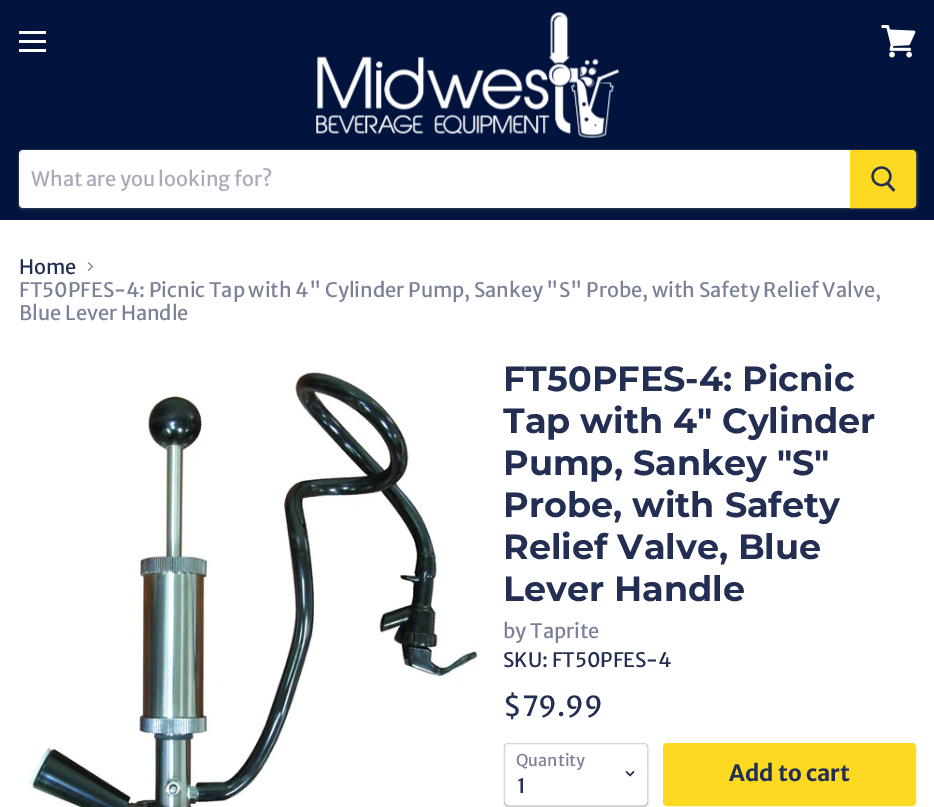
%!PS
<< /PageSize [934 807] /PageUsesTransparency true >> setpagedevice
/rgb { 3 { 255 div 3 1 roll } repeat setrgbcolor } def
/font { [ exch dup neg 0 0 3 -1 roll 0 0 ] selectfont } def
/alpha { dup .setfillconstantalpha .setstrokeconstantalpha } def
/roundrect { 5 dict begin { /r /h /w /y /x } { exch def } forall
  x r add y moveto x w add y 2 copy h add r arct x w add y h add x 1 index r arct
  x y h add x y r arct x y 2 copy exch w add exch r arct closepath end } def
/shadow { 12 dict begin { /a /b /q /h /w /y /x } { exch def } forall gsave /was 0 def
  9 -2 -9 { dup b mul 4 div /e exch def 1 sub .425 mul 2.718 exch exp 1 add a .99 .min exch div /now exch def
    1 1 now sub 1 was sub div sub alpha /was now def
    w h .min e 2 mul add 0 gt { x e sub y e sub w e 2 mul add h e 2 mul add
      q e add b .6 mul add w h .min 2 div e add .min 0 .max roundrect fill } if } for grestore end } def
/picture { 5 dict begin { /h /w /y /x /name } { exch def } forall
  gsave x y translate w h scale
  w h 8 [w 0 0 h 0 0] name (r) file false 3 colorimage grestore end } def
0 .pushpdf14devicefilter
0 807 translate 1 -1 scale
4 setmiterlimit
255 255 255 rgb
0 0 934 807 rectfill
[
  [0 0 934 220 2 19 62]
  [19 31 27 3 255 255 255]
  [19 40 27 3 255 255 255]
  [19 49 27 3 255 255 255]
] { aload pop rgb rectfill } forall
(img/1.rgb) 881 25 35 33 picture
(img/2.rgb) 316 12 303 126 picture
127 127 127 rgb
18 151 900 60 5 2 0.11 shadow
0.2 alpha
22 149.5 moveto 913 149.5 lineto 915.5 149.5 917.5 151.5 917.5 154 curveto 917.5 204 lineto 917.5 206.5 915.5 208.5 913 208.5 curveto 22 208.5 lineto 20 208.5 18.5 207 18.5 205 curveto 18.5 153 lineto 18.5 151 20 149.5 22 149.5 curveto closepath stroke
1 alpha
255 255 255 rgb
23 150 moveto 850 150 lineto 850 208 lineto 23 208 lineto 21 208 19 206 19 204 curveto 19 154 lineto 19 152 21 150 23 150 curveto closepath fill
253 217 34 rgb
850.5 150.5 moveto 912 150.5 lineto 914 150.5 915.5 152 915.5 154 curveto 915.5 204 lineto 915.5 206 914 207.5 912 207.5 curveto 850.5 207.5 lineto closepath gsave fill grestore
stroke
(img/3.rgb) 871 166 25 26 picture
(img/4.rgb) 87 262 6 9 picture
(img/5.rgb) 27 370 452 437 picture
gsave
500 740 moveto 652 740 lineto 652 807 lineto 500 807 lineto closepath 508 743 moveto 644 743 lineto 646 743 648 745 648 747 curveto 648 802 lineto 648 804 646 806 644 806 curveto 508 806 lineto 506 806 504 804 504 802 curveto 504 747 lineto 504 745 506 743 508 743 curveto closepath eoclip newpath
0 0 0 rgb
504 744 144 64 4 1 0.15 shadow
grestore
0.3 alpha
127 127 127 rgb
504.5 743.5 143 62 3.5 roundrect stroke
1 alpha
(img/6.rgb) 625 770 10 7 picture
253 217 34 rgb
663.5 743.5 252 62 3.5 roundrect gsave fill grestore
stroke
/MerriweatherSans-Regular 20 font
167 171 186 rgb
31 186 moveto (What are you looking for?) show
35 46 83 rgb
19 274 moveto (Home) show
123 130 152 rgb
19 297 moveto (FT50PFES-4: Picnic Tap with 4" Cylinder Pump, Sankey "S" Probe, with Safety Relief Valve,) show
19 320 moveto (Blue Lever Handle) show
/Montserrat-Bold 35 font
35 46 83 rgb
[
  [(FT50PFES-4: Picnic) 503 391]
  [(Tap with 4" Cylinder) 503 433]
  [(Pump, Sankey "S") 503 475]
  [(Probe, with Safety) 503 517]
  [(Relief Valve, Blue) 503 559]
  [(Lever Handle) 503 601]
] { aload pop moveto show } forall
/MerriweatherSans-Regular 20 font
123 130 152 rgb
503 638 moveto (by Taprite) show
35 46 83 rgb
503 667 moveto (SKU: FT50PFES-4) show
/MerriweatherSans-Regular 27.5 font
503 716 moveto ($79.99) show
/MerriweatherSans-Regular 16.25 font
123 130 152 rgb
516 766 moveto (Quantity) show
/MerriweatherSans-Regular 20 font
35 46 83 rgb
517 793 moveto (1) show
/MerriweatherSans-Bold 22.5 font
729 781 moveto (Add to cart) show
.poppdf14devicefilter showpage
